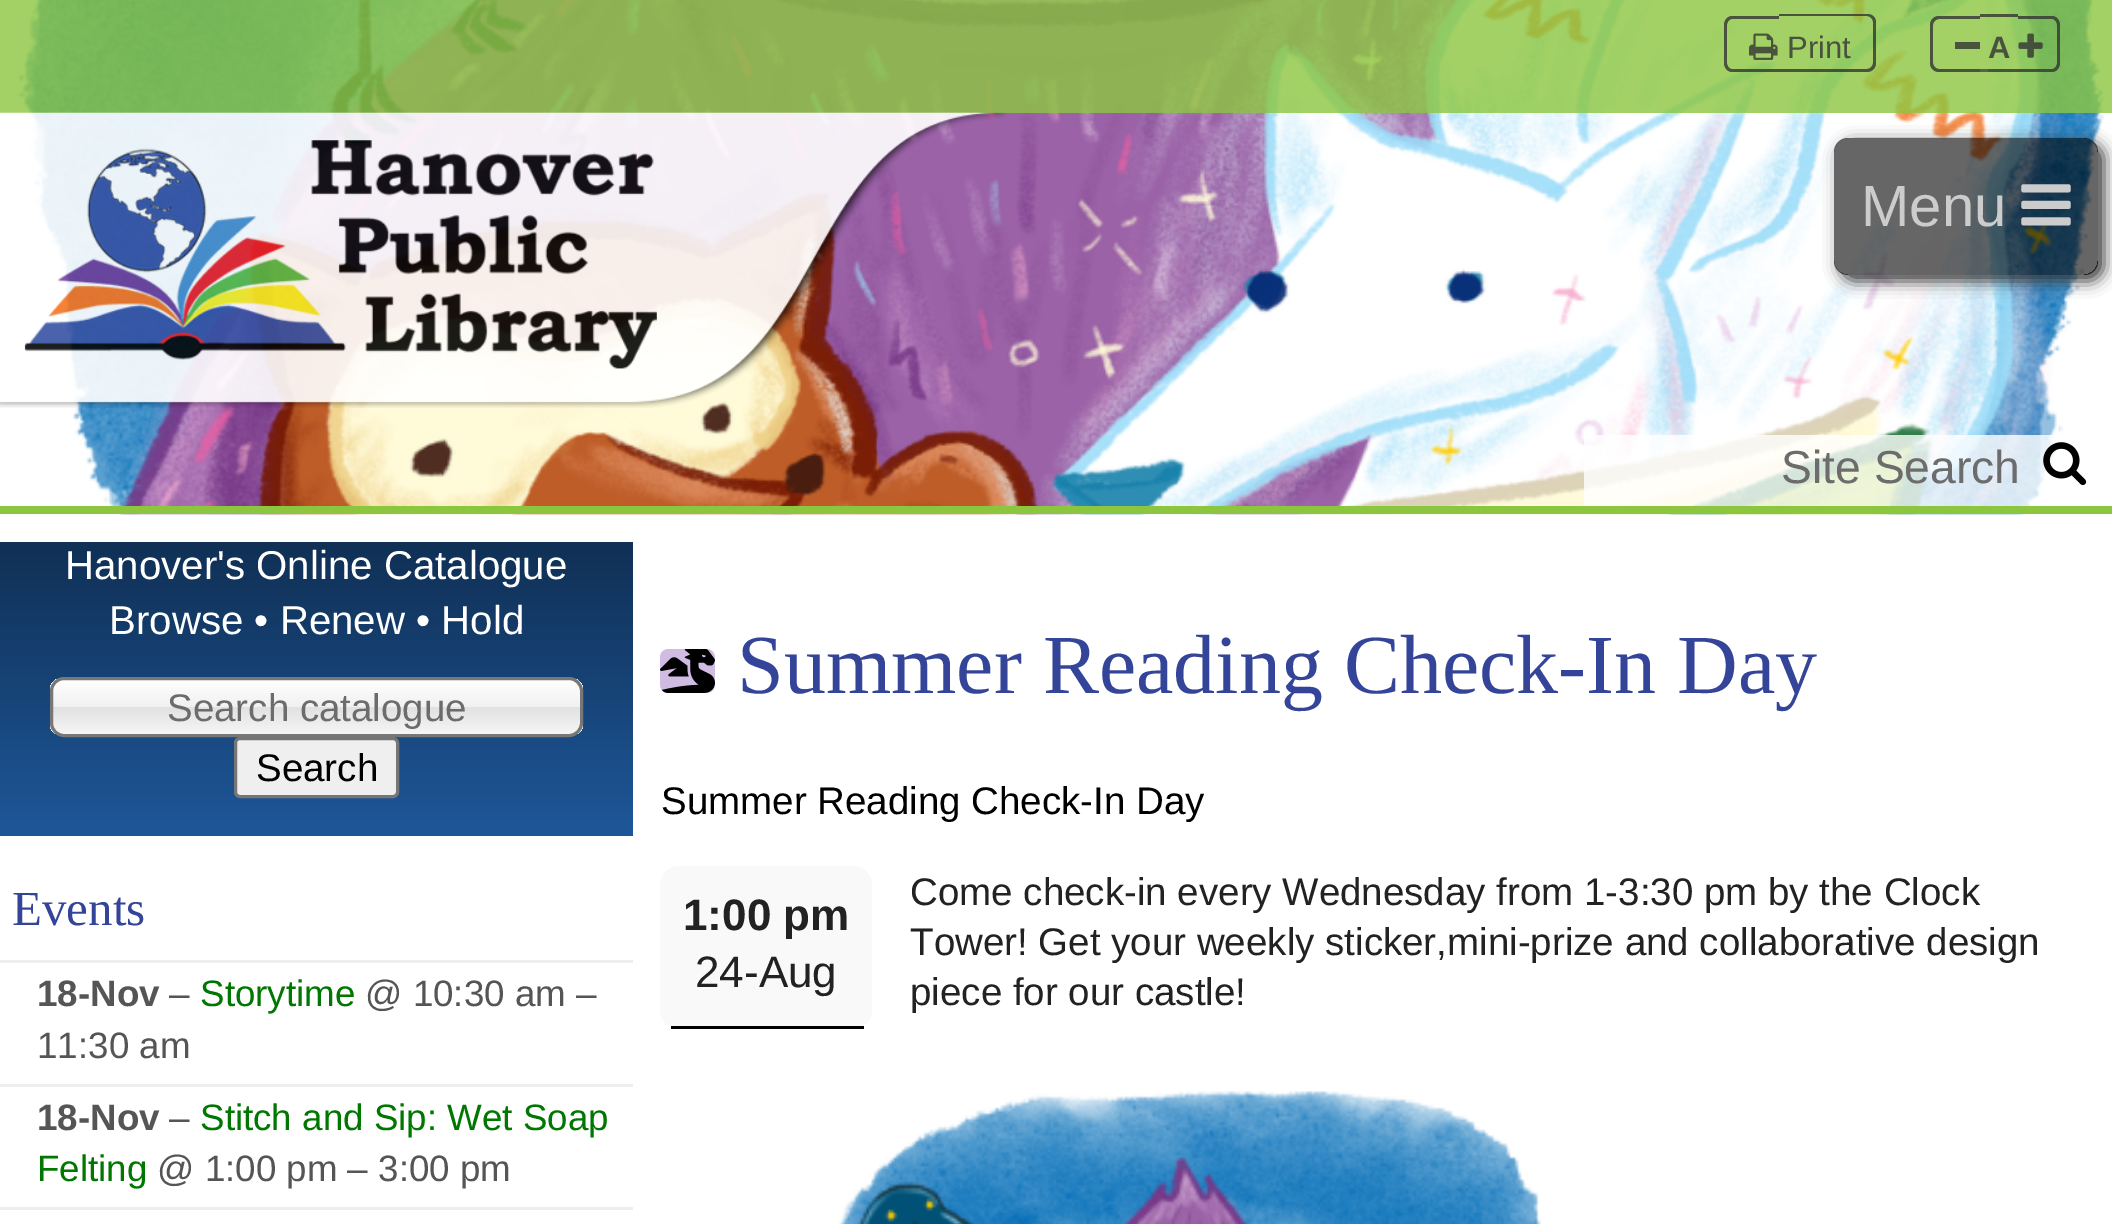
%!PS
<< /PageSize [2112 1224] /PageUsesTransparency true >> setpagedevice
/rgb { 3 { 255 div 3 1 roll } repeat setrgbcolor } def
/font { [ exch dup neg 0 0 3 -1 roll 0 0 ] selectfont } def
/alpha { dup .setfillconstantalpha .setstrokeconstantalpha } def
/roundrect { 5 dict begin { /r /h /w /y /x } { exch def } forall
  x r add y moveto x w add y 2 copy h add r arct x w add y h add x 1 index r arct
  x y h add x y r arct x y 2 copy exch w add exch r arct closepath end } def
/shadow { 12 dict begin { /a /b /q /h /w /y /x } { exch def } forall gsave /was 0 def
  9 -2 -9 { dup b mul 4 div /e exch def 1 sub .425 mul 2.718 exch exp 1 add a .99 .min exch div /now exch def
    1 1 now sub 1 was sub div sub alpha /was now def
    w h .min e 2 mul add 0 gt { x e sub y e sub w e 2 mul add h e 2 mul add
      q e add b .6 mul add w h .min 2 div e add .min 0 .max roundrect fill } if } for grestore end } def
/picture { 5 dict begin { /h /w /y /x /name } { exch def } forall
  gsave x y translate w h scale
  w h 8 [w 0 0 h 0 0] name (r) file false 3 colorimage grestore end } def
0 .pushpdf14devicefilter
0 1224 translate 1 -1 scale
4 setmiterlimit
255 255 255 rgb
0 0 2112 1224 rectfill
(img/1.rgb) 0 0 2112 515 picture
140 198 63 rgb
0 506 2112 8 rectfill
0.8 alpha
0 0 2112 113 rectfill
51 51 51 rgb
1732 16 moveto 1779 16 lineto 1779 72 lineto 1732 72 lineto 1728 72 1724 68 1724 63 curveto 1724 25 lineto 1724 20 1728 16 1732 16 curveto closepath 1732 19 moveto 1779 19 lineto 1779 69 lineto 1732 69 lineto 1729 69 1727 66 1727 63 curveto 1727 25 lineto 1727 22 1729 19 1732 19 curveto closepath eofill
1779 14 moveto 1867 14 lineto 1872 14 1876 17 1876 22 curveto 1876 63 lineto 1876 68 1872 72 1867 72 curveto 1779 72 lineto closepath 1779 16 moveto 1867 16 lineto 1870 16 1873 19 1873 22 curveto 1873 63 lineto 1873 66 1870 69 1867 69 curveto 1779 69 lineto closepath eofill
1 alpha
(img/2.rgb) 1749 33 29 27 picture
0.8 alpha
1939 16 moveto 1980 16 lineto 1980 72 lineto 1939 72 lineto 1934 72 1930 68 1930 63 curveto 1930 25 lineto 1930 20 1934 16 1939 16 curveto closepath 1939 19 moveto 1980 19 lineto 1980 69 lineto 1939 69 lineto 1936 69 1933 66 1933 63 curveto 1933 25 lineto 1933 22 1936 19 1939 19 curveto closepath eofill
1 alpha
[
  [1980 14 8 3 73 83 61]
  [1980 69 8 3 92 92 92]
] { aload pop rgb rectfill } forall
0.8 alpha
[
  [1988 14 22 3 51 51 51]
  [1988 69 22 3 51 51 51]
  [2010 14 8 3 51 51 51]
  [2010 69 8 3 51 51 51]
] { aload pop rgb rectfill } forall
2018 16 moveto 2052 16 lineto 2056 16 2060 20 2060 25 curveto 2060 63 lineto 2060 68 2056 72 2052 72 curveto 2018 72 lineto closepath 2018 19 moveto 2052 19 lineto 2055 19 2057 22 2057 25 curveto 2057 63 lineto 2057 66 2055 69 2052 69 curveto 2018 69 lineto closepath eofill
1 alpha
73 83 61 rgb
1955 42 25 7 rectfill
(img/3.rgb) 2018 33 25 25 picture
(img/4.rgb) 0 112 1007 296 picture
gsave
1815 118 moveto 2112 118 lineto 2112 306 lineto 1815 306 lineto closepath 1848 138 moveto 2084 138 lineto 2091.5 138 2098 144.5 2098 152 curveto 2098 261 lineto 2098 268.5 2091.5 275 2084 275 curveto 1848 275 lineto 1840.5 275 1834 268.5 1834 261 curveto 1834 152 lineto 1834 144.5 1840.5 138 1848 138 curveto closepath eoclip newpath
51 51 51 rgb
1840 143 264 138 14 8 1 shadow
grestore
0.6 alpha
0 0 0 rgb
1834 138 264 137 14 roundrect fill
1 alpha
(img/5.rgb) 2021 184 50 42 picture
0.8 alpha
255 255 255 rgb
1584 435 473 71 rectfill
1 alpha
(img/6.rgb) 2043 442 44 44 picture
gsave 0 542 moveto 633 542 lineto 633 836 lineto 0 836 lineto closepath clip newpath
<< /ShadingType 2 /ColorSpace /DeviceRGB /Coords [316 542 316 836] /Extend [true true] /Function << /FunctionType 2 /Domain [0 1] /C0 [0.063 0.188 0.333] /C1 [0.118 0.341 0.6] /N 1 >> >> shfill grestore
gsave
50 677 533 60 14 roundrect clip newpath
gsave 50 679 moveto 583 679 lineto 583 734 lineto 50 734 lineto closepath clip newpath
<< /ShadingType 2 /ColorSpace /DeviceRGB /Coords [316 679 316 734] /Extend [true true] /Function << /FunctionType 3 /Domain [0 1] /Functions [<< /FunctionType 2 /Domain [0 1] /C0 [1 1 1] /C1 [0.945 0.945 0.945] /N 1 >> << /FunctionType 2 /Domain [0 1] /C0 [0.945 0.945 0.945] /C1 [0.882 0.882 0.882] /N 1 >> << /FunctionType 2 /Domain [0 1] /C0 [0.882 0.882 0.882] /C1 [0.965 0.965 0.965] /N 1 >>] /Bounds [0.5 0.51] /Encode [0 1 0 1 0 1] >> >> shfill grestore
grestore
119 119 119 rgb
3 setlinewidth
51.5 678.5 530 57 12.5 roundrect stroke
239 239 239 rgb
235.5 738.5 162 58 4.5 roundrect gsave fill grestore
118 118 118 rgb
stroke
[
  [0 960 633 3 238 238 238]
  [0 1084 633 3 238 238 238]
  [0 1207 633 3 238 238 238]
] { aload pop rgb rectfill } forall
208 188 226 rgb
660 649 55 44 8 roundrect fill
(img/7.rgb) 660 649 55 44 picture
249 249 249 rgb
660 866 212 163 19 roundrect fill
0 0 0 rgb
671 1026 193 3 rectfill
(img/8.rgb) 838 1090 703 134 picture
/LiberationSans-Regular 31 font
73 82 61 rgb
1787 58 moveto (Print) show
/LiberationSans-Bold 31 font
1988 58 moveto (A) show
/LiberationSans-Regular 58 font
204 204 204 rgb
1861 226 moveto (Menu) show
/LiberationSans-Regular 46.25 font
108 108 108 rgb
1781 483 moveto (Site Search) show
/LiberationSans-Regular 40.25 font
255 255 255 rgb
65 579 moveto (Hanover's Online Catalogue) show
109 634 moveto (Browse • Renew • Hold) show
/LiberationSans-Regular 38.5 font
108 108 108 rgb
167 721 moveto (Search catalogue) show
0 0 0 rgb
256 781 moveto (Search) show
/LiberationSerif-Regular 49 font
51 68 153 rgb
12 925 moveto (Events) show
/LiberationSans-Bold 36.75 font
85 85 85 rgb
37 1006 moveto (18-Nov) show
/LiberationSans-Regular 36.75 font
169 1006 moveto (–) show
0 119 0 rgb
200 1006 moveto (Storytime) show
85 85 85 rgb
365 1006 moveto (@ 10:30 am –) show
37 1058 moveto (11:30 am) show
/LiberationSans-Bold 36.75 font
37 1130 moveto (18-Nov) show
/LiberationSans-Regular 36.75 font
169 1130 moveto (–) show
0 119 0 rgb
200 1130 moveto (Stitch and Sip: Wet Soap) show
37 1181 moveto (Felting) show
85 85 85 rgb
157 1181 moveto (@ 1:00 pm – 3:00 pm) show
/LiberationSerif-Regular 84 font
51 68 153 rgb
737 693 moveto (Summer Reading Check-In Day) show
/LiberationSans-Regular 38.5 font
0 0 0 rgb
661 814 moveto (Summer Reading Check-In Day) show
/LiberationSans-Bold 44 font
34 34 34 rgb
683 930 moveto (1:00 pm) show
/LiberationSans-Regular 44 font
695 987 moveto (24-Aug) show
/LiberationSans-Regular 38.5 font
[
  [(Come check-in every Wednesday from 1-3:30 pm by the Clock) 910 905]
  [(Tower! Get your weekly sticker,mini-prize and collaborative design) 910 955]
  [(piece for our castle!) 910 1005]
] { aload pop moveto show } forall
.poppdf14devicefilter showpage
